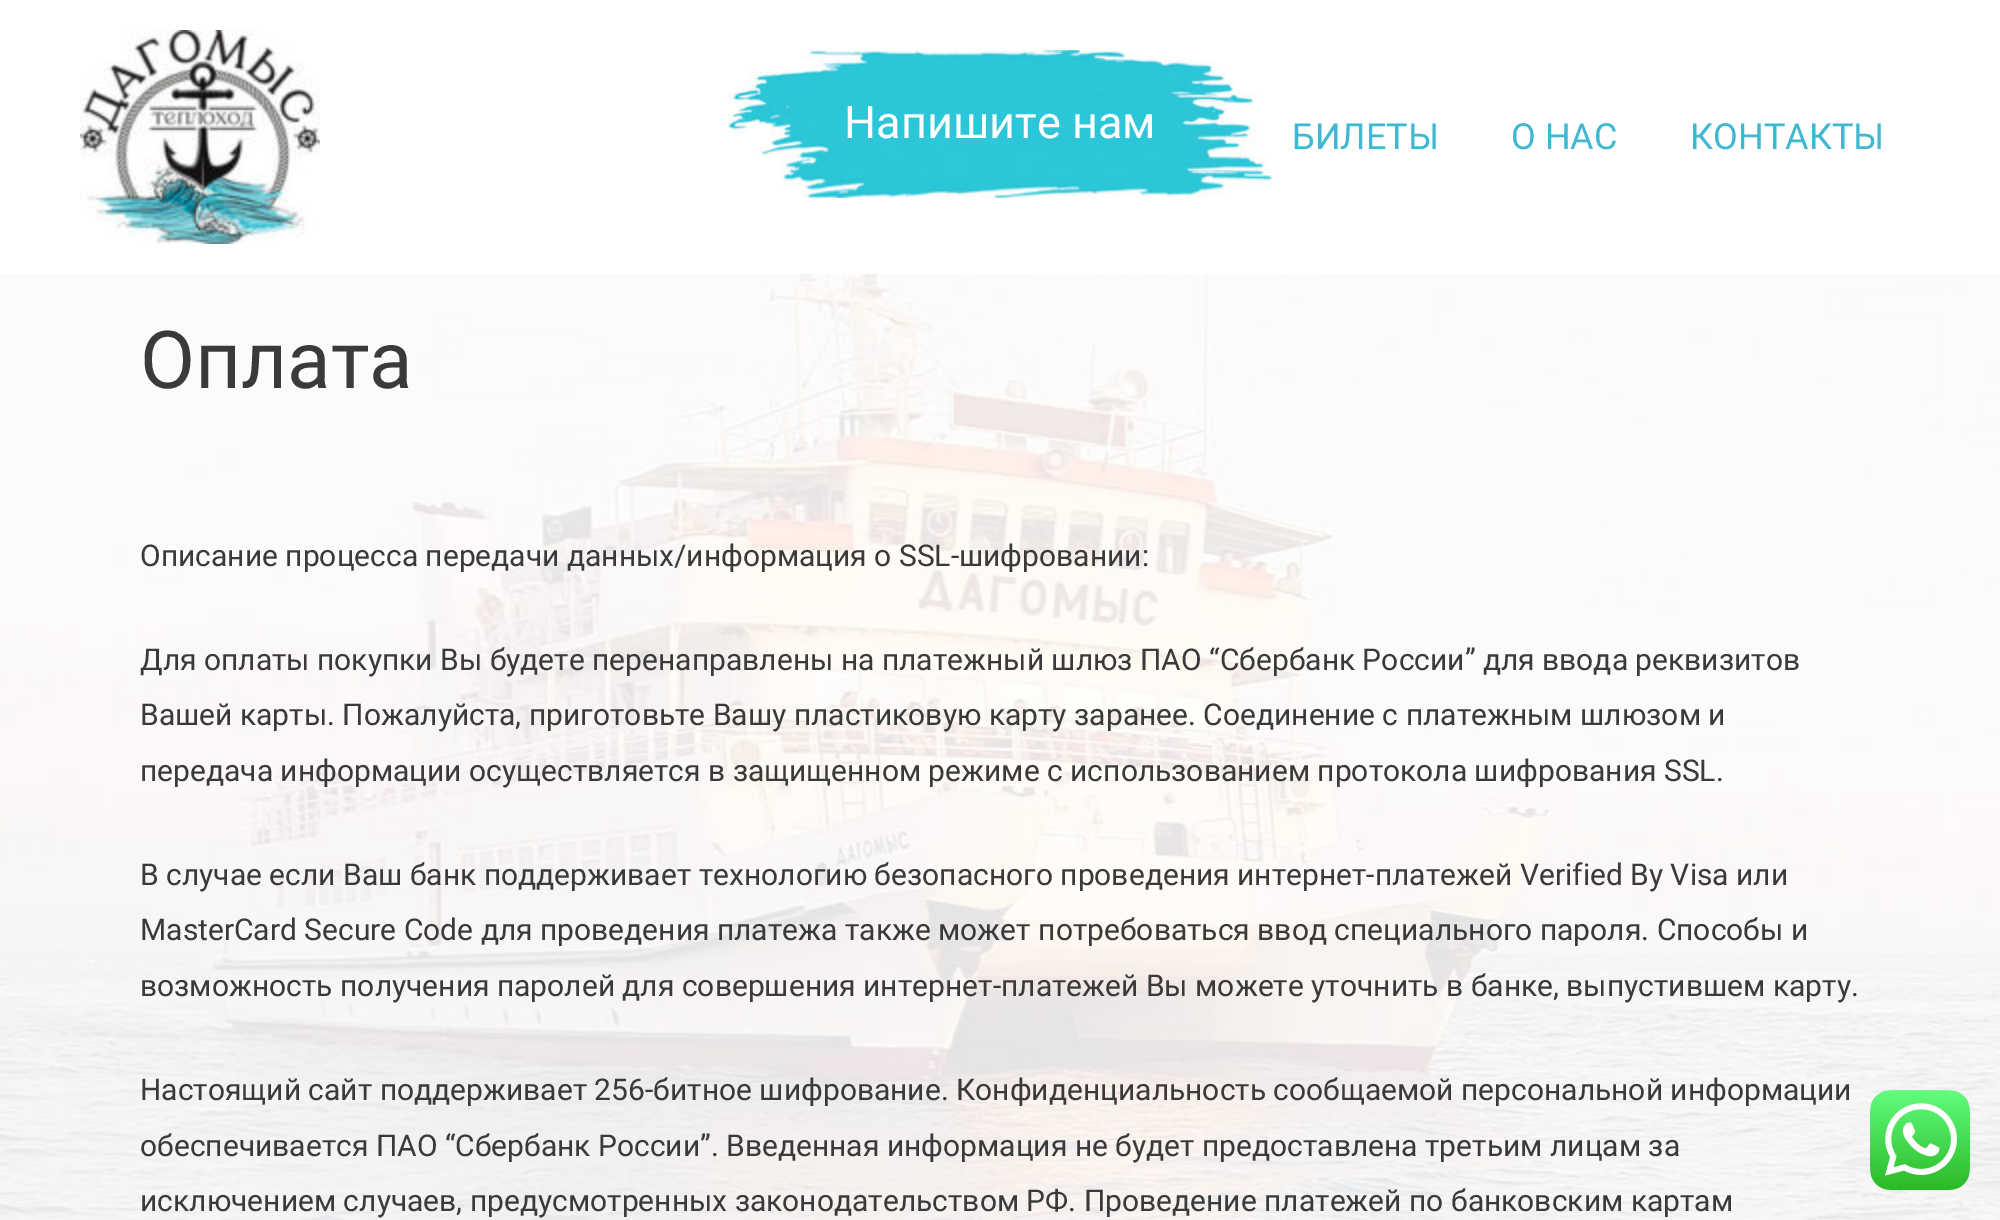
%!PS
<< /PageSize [2000 1220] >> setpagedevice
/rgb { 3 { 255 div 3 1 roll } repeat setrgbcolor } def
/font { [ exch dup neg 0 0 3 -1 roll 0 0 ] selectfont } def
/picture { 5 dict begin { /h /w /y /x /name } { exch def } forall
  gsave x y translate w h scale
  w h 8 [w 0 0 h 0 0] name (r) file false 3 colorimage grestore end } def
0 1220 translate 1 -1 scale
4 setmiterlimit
255 255 255 rgb
0 0 2000 1220 rectfill
(img/1.rgb) 727 50 546 148 picture
(img/2.rgb) 80 30 240 214 picture
(img/3.rgb) 0 274 2000 946 picture
(img/4.rgb) 1870 1090 100 100 picture
/Roboto-Regular 45 font
844 138 moveto (Напишите нам) show
/Roboto-Regular 36 font
64 184 211 rgb
[
  [(БИЛЕТЫ) 1292 149]
  [(О НАС) 1511 149]
  [(КОНТАКТЫ) 1690 149]
] { aload pop moveto show } forall
/Roboto-Regular 80 font
58 58 58 rgb
140 388 moveto (Оплата) show
/Roboto-Regular 30 font
[
  [(Описание процесса передачи данных/информация о SSL-шифровании:) 140 566]
  [(Для оплаты покупки Вы будете перенаправлены на платежный шлюз ПАО “Сбербанк России” для ввода реквизитов) 140 670]
  [(Вашей карты. Пожалуйста, приготовьте Вашу пластиковую карту заранее. Соединение с платежным шлюзом и) 140 725]
  [(передача информации осуществляется в защищенном режиме с использованием протокола шифрования SSL.) 140 781]
  [(В случае если Ваш банк поддерживает технологию безопасного проведения интернет-платежей Verified By Visa или) 140 885]
  [(MasterCard Secure Code для проведения платежа также может потребоваться ввод специального пароля. Способы и) 140 940]
  [(возможность получения паролей для совершения интернет-платежей Вы можете уточнить в банке, выпустившем карту.) 140 996]
  [(Настоящий сайт поддерживает 256-битное шифрование. Конфиденциальность сообщаемой персональной информации) 140 1100]
  [(обеспечивается ПАО “Сбербанк России”. Введенная информация не будет предоставлена третьим лицам за) 140 1156]
  [(исключением случаев, предусмотренных законодательством РФ. Проведение платежей по банковским картам) 140 1211]
] { aload pop moveto show } forall
showpage
